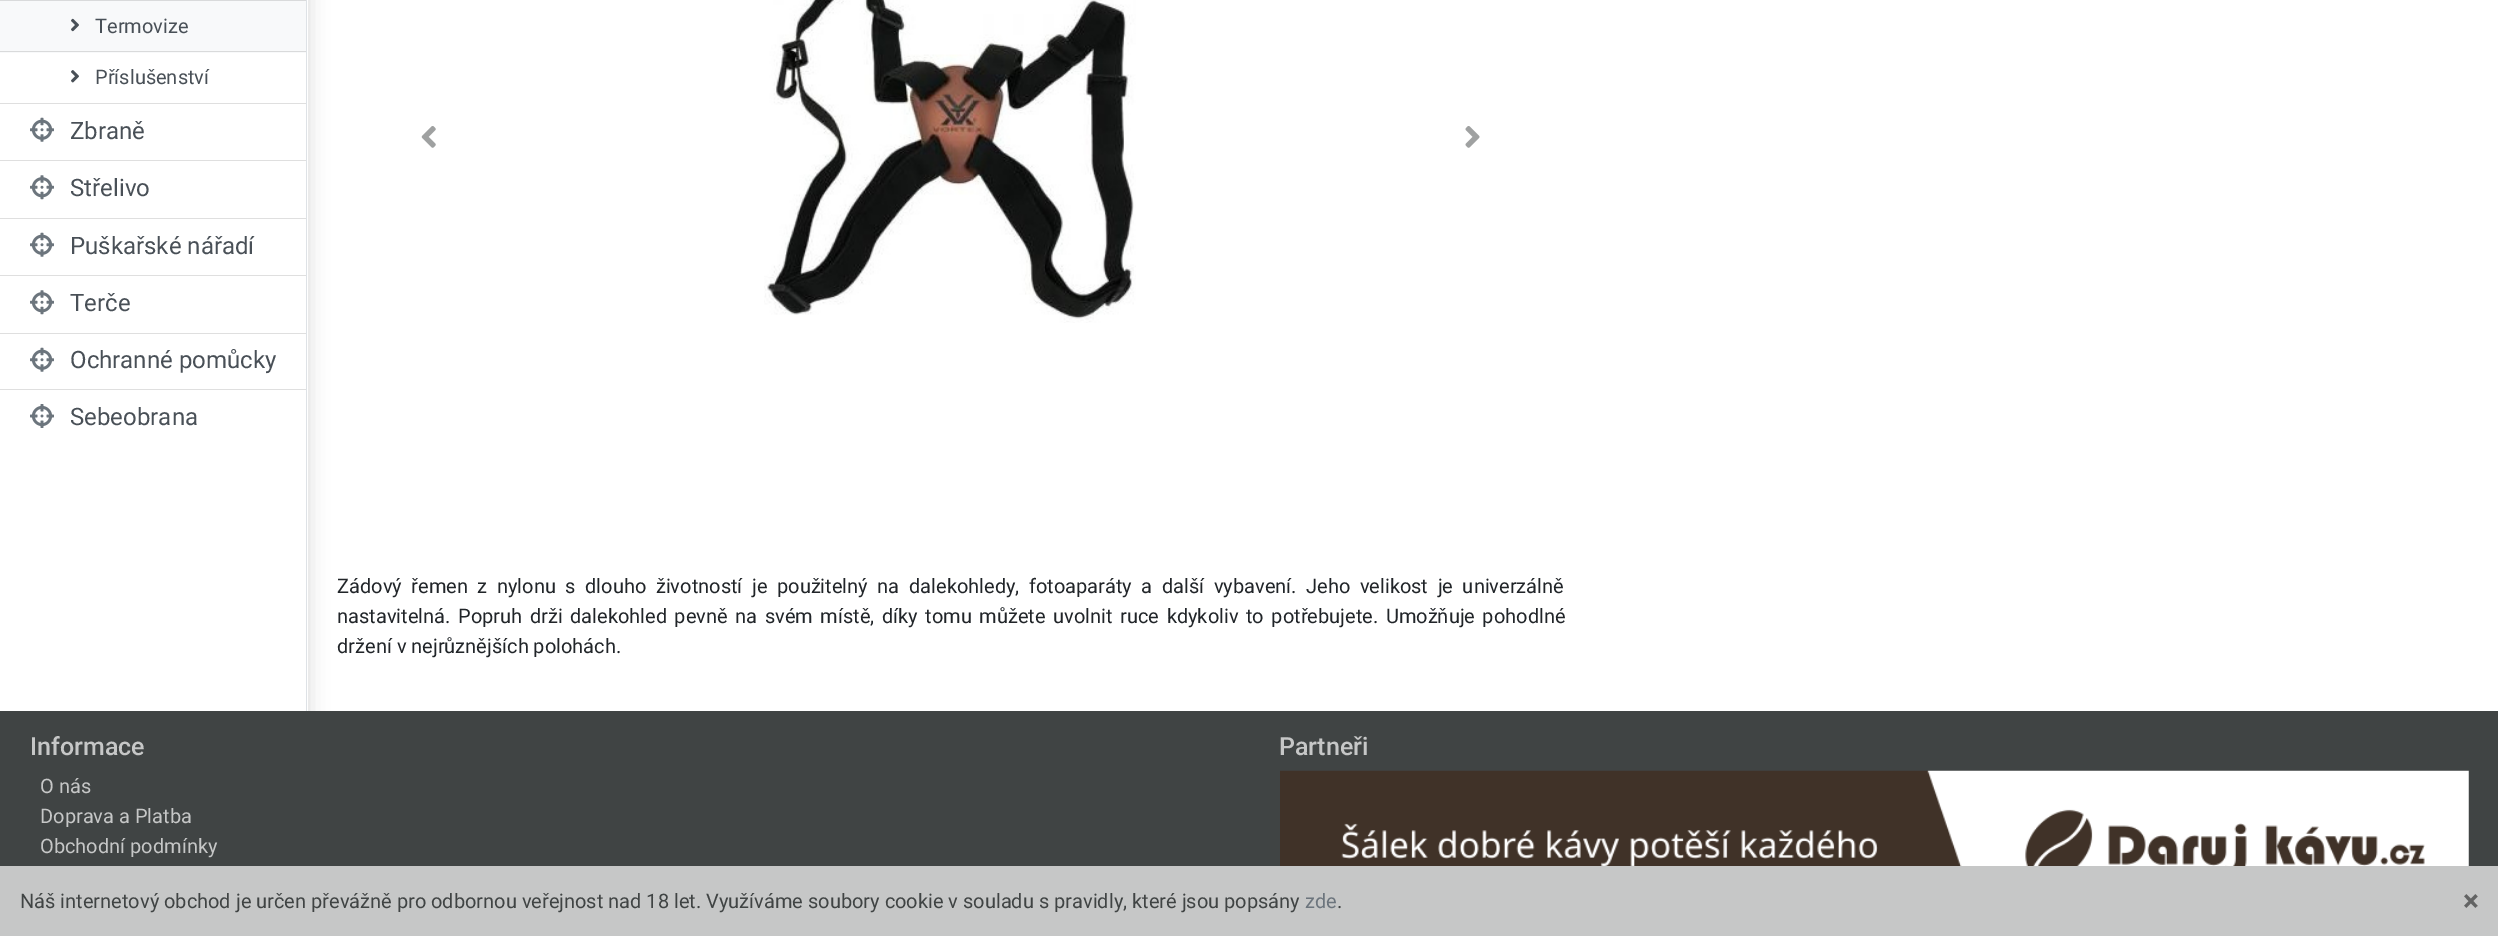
%!PS
<< /PageSize [2498 936] /PageUsesTransparency true >> setpagedevice
/rgb { 3 { 255 div 3 1 roll } repeat setrgbcolor } def
/font { [ exch dup neg 0 0 3 -1 roll 0 0 ] selectfont } def
/alpha { dup .setfillconstantalpha .setstrokeconstantalpha } def
/roundrect { 5 dict begin { /r /h /w /y /x } { exch def } forall
  x r add y moveto x w add y 2 copy h add r arct x w add y h add x 1 index r arct
  x y h add x y r arct x y 2 copy exch w add exch r arct closepath end } def
/shadow { 12 dict begin { /a /b /q /h /w /y /x } { exch def } forall gsave /was 0 def
  9 -2 -9 { dup b mul 4 div /e exch def 1 sub .425 mul 2.718 exch exp 1 add a .99 .min exch div /now exch def
    1 1 now sub 1 was sub div sub alpha /was now def
    w h .min e 2 mul add 0 gt { x e sub y e sub w e 2 mul add h e 2 mul add
      q e add b .6 mul add w h .min 2 div e add .min 0 .max roundrect fill } if } for grestore end } def
/picture { 5 dict begin { /h /w /y /x /name } { exch def } forall
  gsave x y translate w h scale
  w h 8 [w 0 0 h 0 0] name (r) file false 3 colorimage grestore end } def
0 .pushpdf14devicefilter
0 936 translate 1 -1 scale
4 setmiterlimit
255 255 255 rgb
0 0 2498 936 rectfill
gsave
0 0 moveto 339 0 lineto 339 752 lineto 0 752 lineto closepath 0 -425 moveto 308 -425 lineto 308 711 lineto 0 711 lineto closepath eoclip newpath
0 0 0 rgb
0 -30 308 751 0 10 0.15 shadow
grestore
[
  [306 0 1 711 222 226 230]
  [0 103 306 1 223 223 223]
  [0 1 306 52 248 249 250]
  [0 0 306 1 217 218 219]
  [0 51 306 1 217 218 219]
] { aload pop rgb rectfill } forall
(img/1.rgb) 71 18 8 14 picture
(img/2.rgb) 71 70 8 13 picture
(img/3.rgb) 30 117 24 25 picture
223 223 223 rgb
0 160 306 1 rectfill
(img/4.rgb) 30 175 24 25 picture
0 218 306 1 rectfill
(img/3.rgb) 30 232 24 25 picture
0 275 306 1 rectfill
(img/4.rgb) 30 290 24 25 picture
0 333 306 1 rectfill
(img/3.rgb) 30 347 24 25 picture
0 389 306 1 rectfill
(img/5.rgb) 30 404 24 24 picture
(img/6.rgb) 421 126 15 22 picture
(img/7.rgb) 764 0 372 323 picture
(img/8.rgb) 1465 126 15 22 picture
64 68 68 rgb
0 711 2498 155 rectfill
(img/9.rgb) 1280 770 1189 96 picture
198 199 199 rgb
0 866 2498 70 rectfill
/Roboto-Regular 20 font
73 80 87 rgb
95 33 moveto (Termovize) show
95 84 moveto (Příslušenství) show
/Roboto-Regular 24 font
[
  [(Zbraně) 70 139]
  [(Střelivo) 70 196]
  [(Puškařské nářadí) 70 254]
  [(Terče) 70 311]
  [(Ochranné pomůcky) 70 368]
  [(Sebeobrana) 70 425]
] { aload pop moveto show } forall
/Roboto-Regular 20 font
33 37 41 rgb
337 593 moveto 4.6 0 32 (Zádový řemen z nylonu s dlouho životností je použitelný na dalekohledy, fotoaparáty a další vybavení. Jeho velikost je univerzálně) widthshow
337 623 moveto 2.6 0 32 (nastavitelná. Popruh drži dalekohled pevně na svém místě, díky tomu můžete uvolnit ruce kdykoliv to potřebujete. Umožňuje pohodlné) widthshow
337 653 moveto (držení v nejrůznějších polohách.) show
/Roboto-Medium 25 font
198 199 199 rgb
30 755 moveto (Informace) show
/Roboto-Regular 20 font
[
  [(O nás) 40 793]
  [(Doprava a Platba) 40 823]
  [(Obchodní podmínky) 40 853]
] { aload pop moveto show } forall
/Roboto-Medium 25 font
1279 755 moveto (Partneři) show
/Roboto-Regular 20 font
64 68 68 rgb
20 908 moveto (Náš internetový obchod je určen převážně pro odbornou veřejnost nad 18 let. Využíváme soubory cookie v souladu s pravidly, které jsou popsány) show
108 117 125 rgb
1305 908 moveto (zde) show
64 68 68 rgb
1337 908 moveto (.) show
/Roboto-Bold 30 font
99 100 100 rgb
2463 911 moveto (×) show
.poppdf14devicefilter showpage
